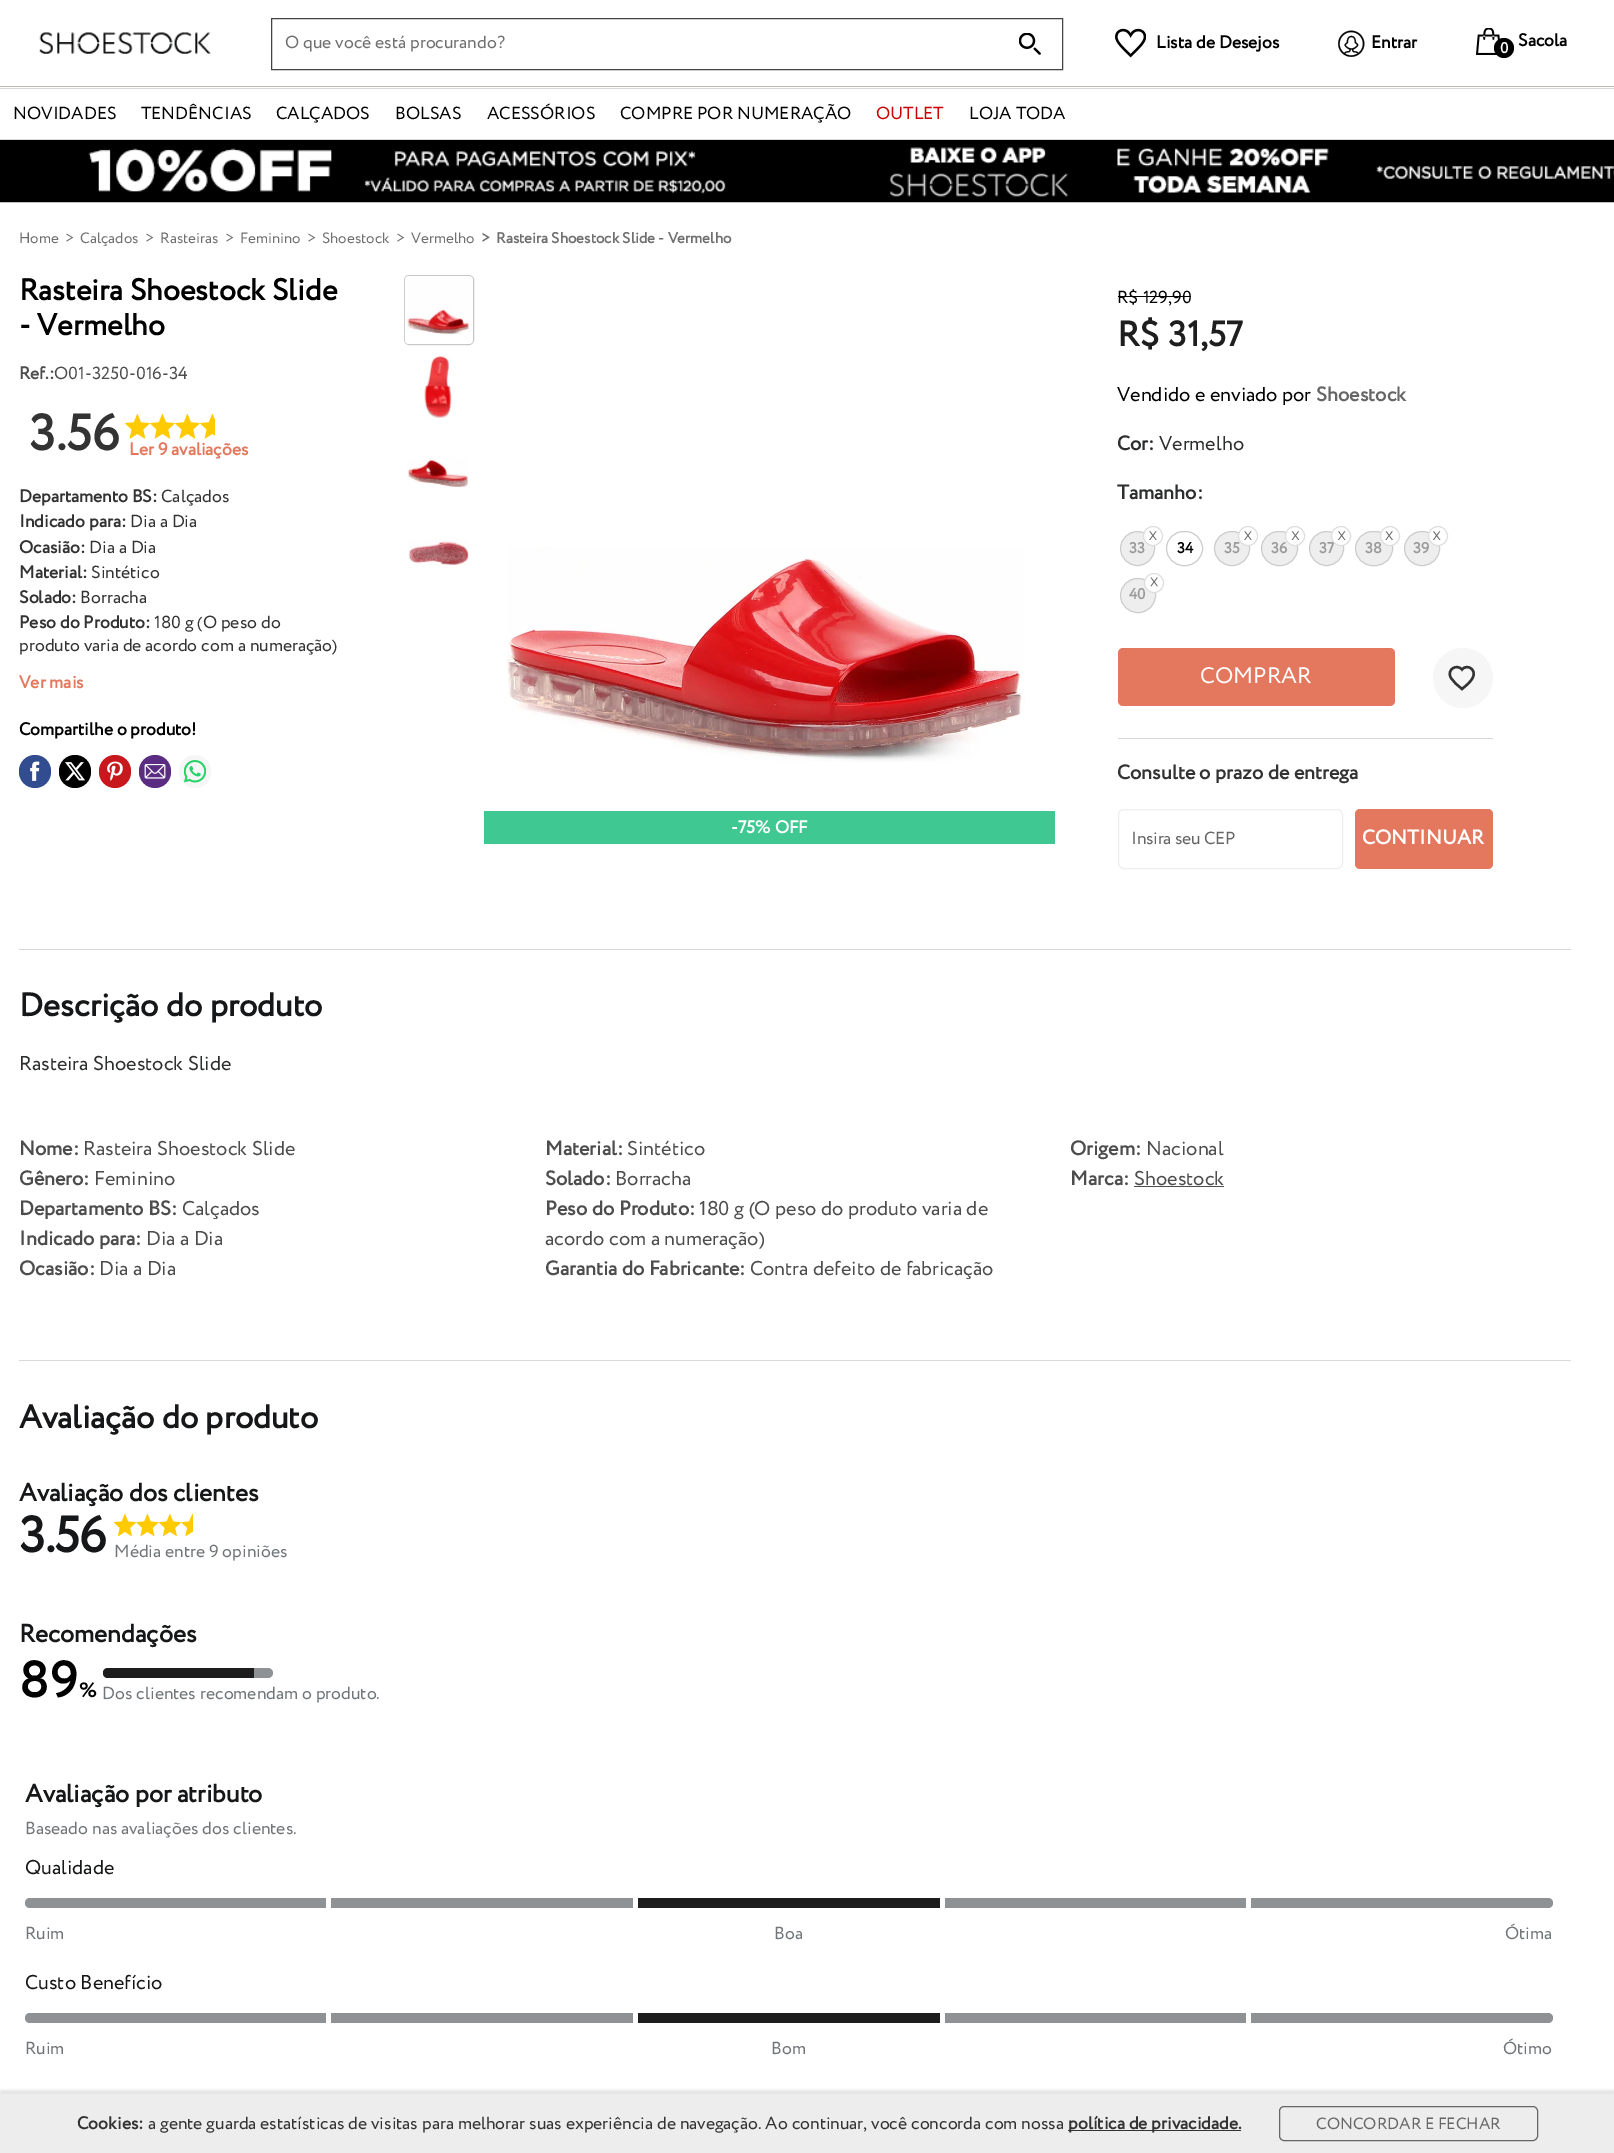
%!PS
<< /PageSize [1614 2153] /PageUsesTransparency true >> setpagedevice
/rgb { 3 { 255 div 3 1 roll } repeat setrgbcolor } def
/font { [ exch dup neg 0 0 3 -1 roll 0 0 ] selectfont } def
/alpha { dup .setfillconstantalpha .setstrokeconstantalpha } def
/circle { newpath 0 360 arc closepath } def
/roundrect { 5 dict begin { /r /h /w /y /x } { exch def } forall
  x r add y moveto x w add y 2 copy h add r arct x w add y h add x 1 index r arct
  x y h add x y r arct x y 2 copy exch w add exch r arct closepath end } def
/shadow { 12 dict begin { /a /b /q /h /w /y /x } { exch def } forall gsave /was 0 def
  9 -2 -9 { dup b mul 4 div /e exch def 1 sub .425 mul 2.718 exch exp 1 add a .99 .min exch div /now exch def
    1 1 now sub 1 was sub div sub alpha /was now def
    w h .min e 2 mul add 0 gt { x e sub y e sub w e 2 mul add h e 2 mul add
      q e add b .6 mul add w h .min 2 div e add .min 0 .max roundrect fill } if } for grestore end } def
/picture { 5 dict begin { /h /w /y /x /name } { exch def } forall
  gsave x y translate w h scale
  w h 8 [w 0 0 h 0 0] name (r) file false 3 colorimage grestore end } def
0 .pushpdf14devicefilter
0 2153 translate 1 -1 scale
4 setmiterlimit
255 255 255 rgb
0 0 1614 2153 rectfill
191 184 175 rgb
0 86 1614 1 rectfill
(img/1.rgb) 39 32 172 22 picture
68 68 68 rgb
271.5 18.5 791 51 rectstroke
(img/2.rgb) 1019 33 22 22 picture
(img/3.rgb) 1115 28 31 30 picture
(img/4.rgb) 1338 30 27 27 picture
(img/5.rgb) 1475 28 25 27 picture
0 0 0 rgb
1504 48 10 circle fill
216 216 216 rgb
0 88 1614 1 rectfill
0 139 1614 1 rectfill
(img/6.rgb) 0 140 1614 63 picture
(img/7.rgb) 125 414 25 25 picture
(img/7.rgb) 150 414 25 25 picture
(img/7.rgb) 175 414 25 25 picture
(img/8.rgb) 200 414 15 25 picture
50 77 143 rgb
19 755 32 33 16 roundrect fill
(img/9.rgb) 30 761 10 20 picture
0 0 0 rgb
59 755 32 33 16 roundrect fill
(img/10.rgb) 65 762 20 19 picture
199 25 29 rgb
99 755 32 33 16 roundrect fill
(img/11.rgb) 107 761 16 20 picture
90 45 130 rgb
139 755 32 33 16 roundrect fill
(img/12.rgb) 144 764 22 15 picture
246 246 247 rgb
179 755 32 33 16 roundrect fill
(img/13.rgb) 184 760 22 23 picture
197 199 201 rgb
404.5 275.5 69 69 4.5 roundrect stroke
(img/14.rgb) 404 276 69 68 picture
(img/15.rgb) 424 354 31 64 picture
(img/16.rgb) 407 458 62 31 picture
(img/17.rgb) 408 539 61 27 picture
(img/18.rgb) 506 558 519 204 picture
(img/19.rgb) 509 547 513 211 picture
64 200 147 rgb
484 811 571 33 rectfill
0 0 0 rgb
1118 296 73 1 rectfill
238 238 238 rgb
1137.5 548.5 17 circle gsave fill grestore
204 204 204 rgb
stroke
1166.5 531.5 36 34 17 roundrect stroke
238 238 238 rgb
1214.5 531.5 35 34 17 roundrect gsave fill grestore
204 204 204 rgb
stroke
238 238 238 rgb
1261.5 531.5 36 34 17 roundrect gsave fill grestore
204 204 204 rgb
stroke
238 238 238 rgb
1326.5 548.5 17 circle gsave fill grestore
204 204 204 rgb
stroke
238 238 238 rgb
1355.5 531.5 37 34 17 roundrect gsave fill grestore
204 204 204 rgb
stroke
238 238 238 rgb
1404.5 531.5 35 34 17 roundrect gsave fill grestore
204 204 204 rgb
stroke
238 238 238 rgb
1120.5 578.5 35 34 17 roundrect gsave fill grestore
204 204 204 rgb
stroke
227 120 94 rgb
1118 648 277 58 5 roundrect fill
246 246 247 rgb
1463 678 30 circle fill
51 51 51 rgb
2.4 setlinewidth
1462 689 moveto 1458 685.5 1453 682 1450.5 677 curveto 1447 669.5 1456.5 663.5 1462 669.5 curveto 1467 663.5 1476.5 669.5 1473 677 curveto 1471 682 1466 685.5 1462 689 curveto closepath stroke
217 217 217 rgb
1118 738 375 1 rectfill
238 238 238 rgb
1 setlinewidth
1118.5 809.5 224 59 5.5 roundrect stroke
227 120 94 rgb
1355 809 138 60 5 roundrect fill
[
  [19 949 1552 1 217 217 217]
  [1134 1186 90 1 77 77 77]
  [19 1360 1552 1 217 217 217]
] { aload pop rgb rectfill } forall
(img/25.rgb) 114 1514 22 22 picture
(img/26.rgb) 136 1514 23 22 picture
(img/25.rgb) 159 1514 22 22 picture
(img/27.rgb) 181 1514 12 22 picture
142 146 149 rgb
103 1668 170 10 5 roundrect fill
29 29 29 rgb
108 1668 moveto 254 1668 lineto 254 1678 lineto 108 1678 lineto 105 1678 103 1676 103 1673 curveto 103 1670 105 1668 108 1668 curveto closepath fill
142 146 149 rgb
331 1898 302 10 rectfill
945 1898 301 10 rectfill
30 1898 moveto 326 1898 lineto 326 1908 lineto 30 1908 lineto 27 1908 25 1906 25 1903 curveto 25 1900 27 1898 30 1898 curveto closepath fill
29 29 29 rgb
638 1898 302 10 rectfill
142 146 149 rgb
1251 1898 moveto 1548 1898 lineto 1551 1898 1553 1900 1553 1903 curveto 1553 1906 1551 1908 1548 1908 curveto 1251 1908 lineto closepath fill
331 2013 302 10 rectfill
945 2013 301 10 rectfill
30 2013 moveto 326 2013 lineto 326 2023 lineto 30 2023 lineto 27 2023 25 2021 25 2018 curveto 25 2015 27 2013 30 2013 curveto closepath fill
29 29 29 rgb
638 2013 302 10 rectfill
142 146 149 rgb
1251 2013 moveto 1548 2013 lineto 1551 2013 1553 2015 1553 2018 curveto 1553 2021 1551 2023 1548 2023 curveto 1251 2023 lineto closepath fill
0 0 0 rgb
0 2090 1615 60 0 1 0.1 shadow
237 237 237 rgb
0 2094 1614 59 rectfill
51 51 51 rgb
1068 2130 173 1 rectfill
102 102 102 rgb
1279.5 2106.5 258 34 4.5 roundrect stroke
/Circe-Regular 17.5 font
112 112 112 rgb
285 48 moveto (O que você está procurando?) show
/Circe-Bold 17.5 font
0 0 0 rgb
1156 48 moveto (Lista de Desejos) show
1371 48 moveto (Entrar) show
/Circe-Bold 15 font
255 255 255 rgb
1500 53 moveto (0) show
/Circe-Bold 17.5 font
0 0 0 rgb
1518 46 moveto (Sacola) show
/Circe-Regular 17.5 font
[
  [(NOVIDADES) 13 119]
  [(TENDÊNCIAS) 141 119]
  [(CALÇADOS) 276 119]
  [(BOLSAS) 395 119]
  [(ACESSÓRIOS) 487 119]
  [(COMPRE POR NUMERAÇÃO) 620 119]
] { aload pop moveto show } forall
203 0 0 rgb
876 119 moveto (OUTLET) show
0 0 0 rgb
969 119 moveto (LOJA TODA) show
/Circe-Regular 15 font
112 112 112 rgb
[
  [(Home) 19 243]
  [(>) 65 243]
  [(Calçados) 80 243]
  [(>) 145 243]
  [(Rasteiras) 160 243]
  [(>) 225 243]
  [(Feminino) 240 243]
  [(>) 307 243]
  [(Shoestock) 322 243]
  [(>) 396 243]
  [(Vermelho) 411 243]
] { aload pop moveto show } forall
/Circe-Bold 15 font
481 243 moveto (>) show
496 243 moveto (Rasteira Shoestock Slide - Vermelho) show
/Circe-Bold 30 font
0 0 0 rgb
19 300 moveto (Rasteira Shoestock Slide) show
19 335 moveto (- Vermelho) show
/Circe-Bold 17.5 font
77 77 77 rgb
19 379 moveto (Ref.:) show
/Circe-Regular 17.5 font
54 379 moveto (O01-3250-016-34) show
/Circe-Bold 50 font
51 51 51 rgb
29 450 moveto (3.56) show
/Circe-Bold 17.5 font
227 120 94 rgb
129 455 moveto (Ler 9 avaliações) show
51 51 51 rgb
19 502 moveto (Departamento BS:) show
/Circe-Regular 17.5 font
161 502 moveto (Calçados) show
/Circe-Bold 17.5 font
19 527 moveto (Indicado para:) show
/Circe-Regular 17.5 font
130 527 moveto (Dia a Dia) show
/Circe-Bold 17.5 font
19 553 moveto (Ocasião:) show
/Circe-Regular 17.5 font
89 553 moveto (Dia a Dia) show
/Circe-Bold 17.5 font
19 578 moveto (Material:) show
/Circe-Regular 17.5 font
91 578 moveto (Sintético) show
/Circe-Bold 17.5 font
19 603 moveto (Solado:) show
/Circe-Regular 17.5 font
80 603 moveto (Borracha) show
/Circe-Bold 17.5 font
19 628 moveto (Peso do Produto:) show
/Circe-Regular 17.5 font
154 628 moveto (180 g \(O peso do) show
19 651 moveto (produto varia de acordo com a numeração\)) show
/Circe-Bold 17.5 font
227 120 94 rgb
19 688 moveto (Ver mais) show
0 0 0 rgb
19 735 moveto (Compartilhe o produto!) show
255 255 255 rgb
731 833 moveto (-75% OFF) show
/Circe-Regular 17.5 font
0 0 0 rgb
1117 303 moveto (R$ 129,90) show
/Circe-Bold 35 font
30 30 30 rgb
1117 346 moveto (R$ 31,57) show
/Circe-Regular 20 font
0 0 0 rgb
1117 401 moveto (Vendido e enviado por) show
/Circe-Bold 20 font
102 102 102 rgb
1316 401 moveto (Shoestock) show
45 46 47 rgb
1117 450 moveto (Cor:) show
/Circe-Regular 20 font
1159 450 moveto (Vermelho) show
/Circe-Bold 20 font
1117 499 moveto (Tamanho:) show
/Circe-Bold 15 font
153 153 153 rgb
1129 553 moveto (33) show
255 255 255 rgb
1153 536 9.5 circle gsave fill grestore
221 221 221 rgb
stroke
(img/20.rgb) 1149 531 8 9 picture
0 0 0 rgb
1177 553 moveto (34) show
153 153 153 rgb
1224 553 moveto (35) show
255 255 255 rgb
1248 536 9.5 circle gsave fill grestore
221 221 221 rgb
stroke
(img/20.rgb) 1244 531 8 9 picture
153 153 153 rgb
1271 553 moveto (36) show
255 255 255 rgb
1295 536 9.5 circle gsave fill grestore
221 221 221 rgb
stroke
(img/21.rgb) 1291 531 9 9 picture
153 153 153 rgb
1319 553 moveto (37) show
255 255 255 rgb
1341 536 9.5 circle gsave fill grestore
221 221 221 rgb
stroke
(img/22.rgb) 1337 531 9 9 picture
153 153 153 rgb
1365 553 moveto (38) show
255 255 255 rgb
1390 536 9.5 circle gsave fill grestore
221 221 221 rgb
stroke
(img/23.rgb) 1385 531 8 9 picture
153 153 153 rgb
1413 553 moveto (39) show
255 255 255 rgb
1438 536 9.5 circle gsave fill grestore
221 221 221 rgb
stroke
(img/22.rgb) 1432 531 9 9 picture
153 153 153 rgb
1129 599 moveto (40) show
255 255 255 rgb
1154 583 9.5 circle gsave fill grestore
221 221 221 rgb
stroke
(img/24.rgb) 1150 577 8 10 picture
/Circe-Regular 22.5 font
255 255 255 rgb
1200 683 moveto (COMPRAR) show
/Circe-Bold 20 font
51 51 51 rgb
1117 779 moveto (Consulte o prazo de entrega) show
/Circe-Regular 17.5 font
102 102 102 rgb
1131 844 moveto -0.25 0 (Insira seu CEP) ashow
/Circe-Bold 20 font
255 255 255 rgb
1362 844 moveto (CONTINUAR) show
/Circe-Bold 32.5 font
22 23 24 rgb
19 1016 moveto (Descrição do produto) show
/Circe-Regular 20 font
45 46 47 rgb
19 1070 moveto (Rasteira Shoestock Slide) show
/Circe-Bold 20 font
77 77 77 rgb
19 1155 moveto (Nome:) show
/Circe-Regular 20 font
83 1155 moveto (Rasteira Shoestock Slide) show
/Circe-Bold 20 font
545 1155 moveto (Material:) show
/Circe-Regular 20 font
627 1155 moveto (Sintético) show
/Circe-Bold 20 font
1070 1155 moveto (Origem:) show
/Circe-Regular 20 font
1146 1155 moveto (Nacional) show
/Circe-Bold 20 font
19 1185 moveto (Gênero:) show
/Circe-Regular 20 font
94 1185 moveto (Feminino) show
/Circe-Bold 20 font
545 1185 moveto (Solado:) show
/Circe-Regular 20 font
615 1185 moveto (Borracha) show
/Circe-Bold 20 font
1070 1185 moveto (Marca:) show
/Circe-Regular 20 font
1134 1185 moveto (Shoestock) show
/Circe-Bold 20 font
19 1215 moveto (Departamento BS:) show
/Circe-Regular 20 font
182 1215 moveto (Calçados) show
/Circe-Bold 20 font
545 1215 moveto (Peso do Produto:) show
/Circe-Regular 20 font
699 1215 moveto (180 g \(O peso do produto varia de) show
545 1245 moveto (acordo com a numeração\)) show
/Circe-Bold 20 font
19 1245 moveto (Indicado para:) show
/Circe-Regular 20 font
146 1245 moveto (Dia a Dia) show
/Circe-Bold 20 font
19 1275 moveto (Ocasião:) show
/Circe-Regular 20 font
99 1275 moveto (Dia a Dia) show
/Circe-Bold 20 font
545 1275 moveto (Garantia do Fabricante:) show
/Circe-Regular 20 font
750 1275 moveto (Contra defeito de fabricação) show
/Circe-Bold 32.5 font
22 23 24 rgb
19 1428 moveto (Avaliação do produto) show
/Circe-Bold 25 font
19 1501 moveto (Avaliação dos clientes) show
/Circe-Bold 50 font
19 1552 moveto -1 0 (3.56) ashow
/Circe-Regular 17.5 font
114 118 121 rgb
114 1557 moveto (Média entre 9 opiniões) show
/Circe-Bold 25 font
22 23 24 rgb
19 1642 moveto (Recomendações) show
/Circe-Bold 50 font
0 0 0 rgb
19 1697 moveto 1 0 (89) ashow
/Circe-Bold 20 font
79 1697 moveto 1 0 (%) ashow
/Circe-Regular 17.5 font
114 118 121 rgb
102 1699 moveto (Dos clientes recomendam o produto.) show
/Circe-Bold 25 font
22 23 24 rgb
25 1802 moveto (Avaliação por atributo) show
/Circe-Regular 17.5 font
114 118 121 rgb
25 1834 moveto (Baseado nas avaliações dos clientes.) show
/Circe-Regular 20 font
22 23 24 rgb
25 1874 moveto (Qualidade) show
/Circe-Regular 17.5 font
114 118 121 rgb
[
  [(Ruim) 25 1939]
  [(Boa) 774 1939]
  [(Ótima) 1505 1939]
] { aload pop moveto show } forall
/Circe-Regular 20 font
22 23 24 rgb
25 1989 moveto (Custo Benefício) show
/Circe-Regular 17.5 font
114 118 121 rgb
[
  [(Ruim) 25 2054]
  [(Bom) 771 2054]
  [(Ótimo) 1503 2054]
] { aload pop moveto show } forall
/Circe-Bold 17.5 font
51 51 51 rgb
77 2129 moveto (Cookies:) show
/Circe-Regular 17.5 font
148 2129 moveto (a gente guarda estatísticas de visitas para melhorar suas experiência de navegação. Ao continuar, você concorda com nossa) show
/Circe-Bold 17.5 font
1068 2129 moveto (política de privacidade.) show
/Circe-Regular 16.25 font
102 102 102 rgb
1316 2129 moveto (CONCORDAR E FECHAR) show
.poppdf14devicefilter showpage
